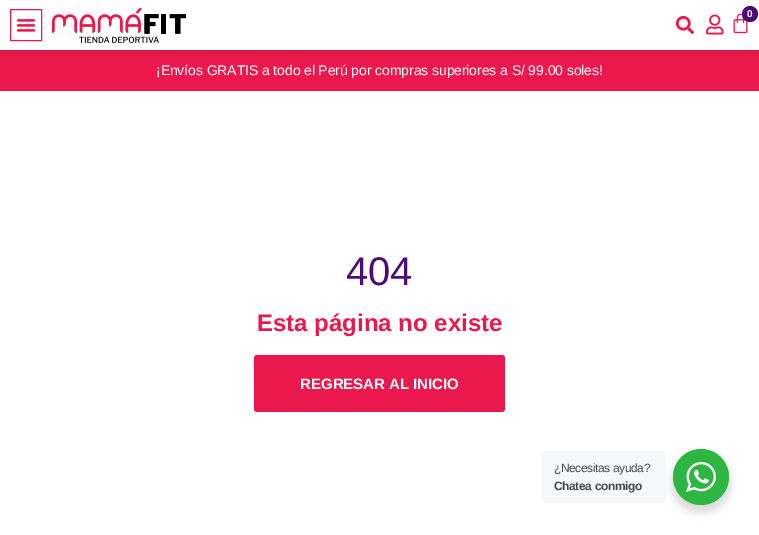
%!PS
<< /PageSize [759 535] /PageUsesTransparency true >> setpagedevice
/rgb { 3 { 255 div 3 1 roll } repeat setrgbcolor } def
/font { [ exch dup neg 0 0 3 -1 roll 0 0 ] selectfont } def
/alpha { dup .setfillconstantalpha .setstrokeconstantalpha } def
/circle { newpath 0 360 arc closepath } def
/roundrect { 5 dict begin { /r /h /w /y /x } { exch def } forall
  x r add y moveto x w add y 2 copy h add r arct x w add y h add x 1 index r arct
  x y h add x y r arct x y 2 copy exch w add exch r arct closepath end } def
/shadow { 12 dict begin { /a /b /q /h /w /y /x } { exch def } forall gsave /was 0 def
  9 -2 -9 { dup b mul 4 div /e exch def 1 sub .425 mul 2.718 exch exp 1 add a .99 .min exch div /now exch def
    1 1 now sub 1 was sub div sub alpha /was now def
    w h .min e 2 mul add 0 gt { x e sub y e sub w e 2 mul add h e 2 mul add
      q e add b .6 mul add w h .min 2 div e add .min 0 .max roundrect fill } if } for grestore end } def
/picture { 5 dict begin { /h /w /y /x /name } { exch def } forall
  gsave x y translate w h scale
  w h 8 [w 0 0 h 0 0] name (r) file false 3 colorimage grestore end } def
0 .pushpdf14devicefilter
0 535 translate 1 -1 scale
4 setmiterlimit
255 255 255 rgb
0 0 759 535 rectfill
235 24 77 rgb
0 50 759 41 rectfill
gsave
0 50 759 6 rectclip
0 0 0 rgb
0 0 759 50 0 5 0.15 shadow
grestore
10.5 9.5 31 31 rectstroke
(img/1.rgb) 16 19 20 13 picture
(img/2.rgb) 52 8 134 35 picture
(img/3.rgb) 676 16 18 18 picture
(img/4.rgb) 706 14 18 21 picture
(img/5.rgb) 733 13 15 21 picture
75 12 122 rgb
750 14 8 circle fill
235 24 77 rgb
254 355 251 57 3 roundrect fill
0 0 0 rgb
671 453 60 60 30 4 0.14 shadow
245 247 249 rgb
542 451 124 52 4 roundrect fill
45 183 66 rgb
701 477 28 circle fill
(img/6.rgb) 686 462 30 30 picture
/LiberationSans-Bold 10 font
255 255 255 rgb
747 17 moveto (0) show
/LiberationSans-Regular 14 font
156 75 moveto -0.1 0 (¡Envíos GRATIS a todo el Perú por compras superiores a S/ 99.00 soles!) ashow
/LiberationSans-Regular 40 font
75 12 122 rgb
346 285 moveto (404) show
/LiberationSans-Bold 24 font
235 24 77 rgb
257 331 moveto (Esta página no existe) show
/LiberationSans-Bold 15 font
255 255 255 rgb
300 389 moveto (REGRESAR AL INICIO) show
/LiberationSans-Regular 12 font
67 71 78 rgb
554 472 moveto -0.4 0 (¿Necesitas ayuda?) ashow
/LiberationSans-Bold 12 font
554 490 moveto -0.4 0 (Chatea conmigo) ashow
.poppdf14devicefilter showpage
